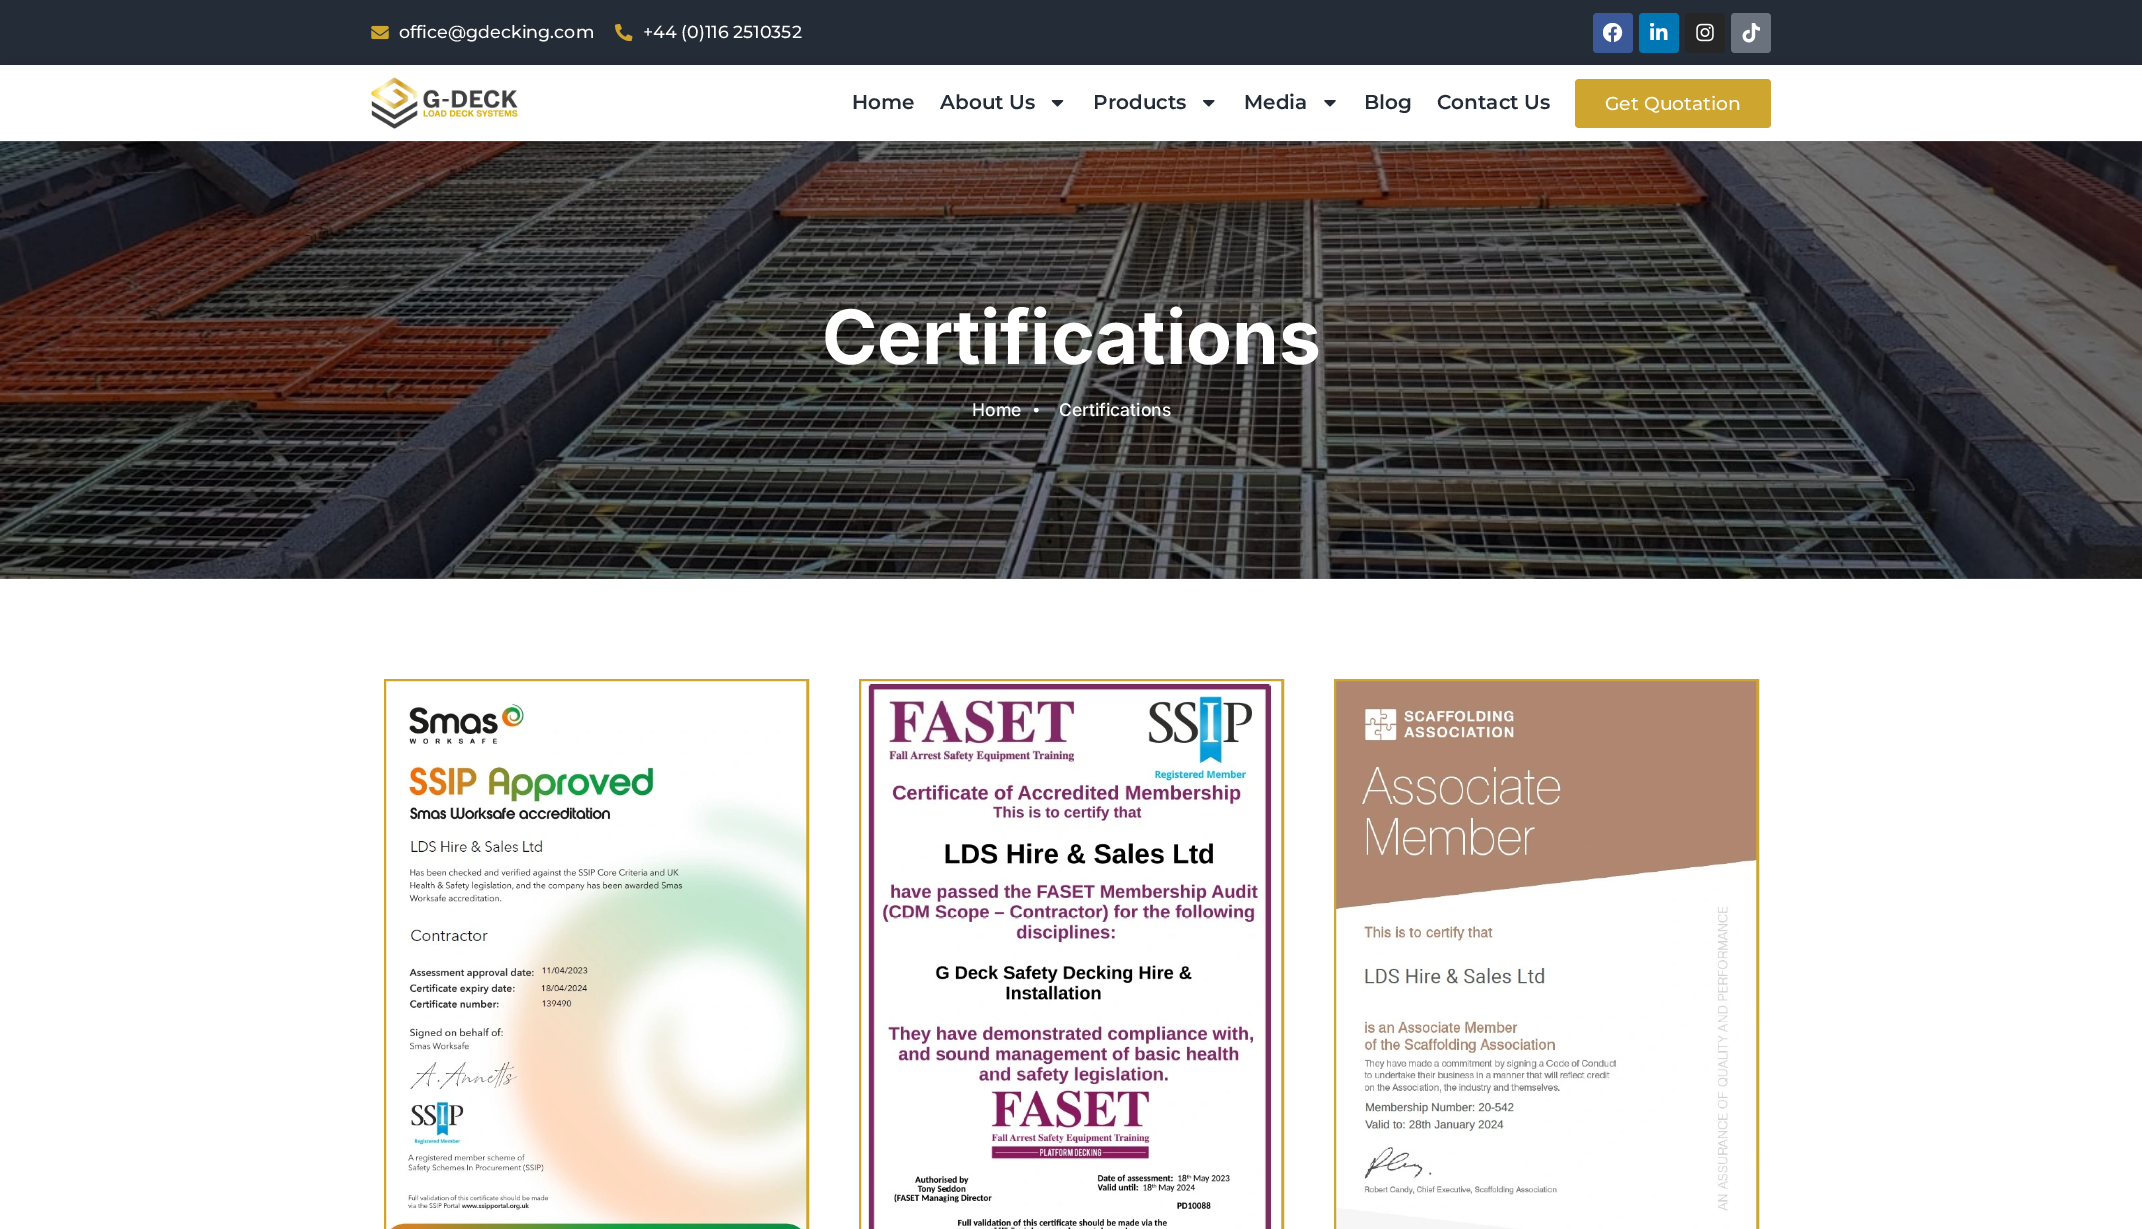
%!PS
<< /PageSize [2142 1229] /PageUsesTransparency true >> setpagedevice
/rgb { 3 { 255 div 3 1 roll } repeat setrgbcolor } def
/font { [ exch dup neg 0 0 3 -1 roll 0 0 ] selectfont } def
/alpha { dup .setfillconstantalpha .setstrokeconstantalpha } def
/roundrect { 5 dict begin { /r /h /w /y /x } { exch def } forall
  x r add y moveto x w add y 2 copy h add r arct x w add y h add x 1 index r arct
  x y h add x y r arct x y 2 copy exch w add exch r arct closepath end } def
/shadow { 12 dict begin { /a /b /q /h /w /y /x } { exch def } forall gsave /was 0 def
  9 -2 -9 { dup b mul 4 div /e exch def 1 sub .425 mul 2.718 exch exp 1 add a .99 .min exch div /now exch def
    1 1 now sub 1 was sub div sub alpha /was now def
    w h .min e 2 mul add 0 gt { x e sub y e sub w e 2 mul add h e 2 mul add
      q e add b .6 mul add w h .min 2 div e add .min 0 .max roundrect fill } if } for grestore end } def
/picture { 5 dict begin { /h /w /y /x /name } { exch def } forall
  gsave x y translate w h scale
  w h 8 [w 0 0 h 0 0] name (r) file false 3 colorimage grestore end } def
0 .pushpdf14devicefilter
0 1229 translate 1 -1 scale
4 setmiterlimit
255 255 255 rgb
0 0 2142 1229 rectfill
36 44 55 rgb
0 0 2142 65 rectfill
(img/1.rgb) 371 25 18 15 picture
(img/2.rgb) 615 24 18 17 picture
59 89 152 rgb
1593 13 40 40 4 roundrect fill
(img/3.rgb) 1603 23 20 19 picture
0 119 181 rgb
1639 13 40 40 4 roundrect fill
(img/4.rgb) 1650 23 18 17 picture
38 38 38 rgb
1685 13 40 40 4 roundrect fill
(img/5.rgb) 1696 23 18 19 picture
105 114 125 rgb
1731 13 40 40 4 roundrect fill
(img/6.rgb) 1742 23 18 20 picture
gsave
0 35 moveto 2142 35 lineto 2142 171 lineto 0 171 lineto closepath 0 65 moveto 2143 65 lineto 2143 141 lineto 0 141 lineto closepath eoclip newpath
0 0 0 rgb
0 65 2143 76 0 9.5 0.09 shadow
grestore
(img/7.rgb) 371 77 147 52 picture
(img/8.rgb) 1051 100 13 7 picture
(img/9.rgb) 1203 100 12 7 picture
(img/10.rgb) 1324 100 12 7 picture
206 166 47 rgb
1575 79 196 49 4 roundrect fill
(img/11.rgb) 0 141 2142 438 picture
0.5 alpha
0 0 0 rgb
0 141 2142 438 rectfill
1 alpha
(img/12.rgb) 1034 408 5 5 picture
206 166 47 rgb
3 setlinewidth
385.5 680.5 422 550 rectstroke
(img/13.rgb) 386 681 421 548 picture
860.5 680.5 422 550 rectstroke
(img/14.rgb) 861 681 421 548 picture
1335.5 680.5 422 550 rectstroke
(img/15.rgb) 1336 681 421 548 picture
/Montserrat-Medium 17.5 font
255 255 255 rgb
399 38 moveto (office@gdecking.com) show
643 38 moveto (+44 \(0\)116 2510352) show
/Montserrat-SemiBold 20 font
36 44 55 rgb
[
  [(Home) 852 109]
  [(About Us) 940 109]
  [(Products) 1093 109]
  [(Media) 1244 109]
  [(Blog) 1364 109]
  [(Contact Us) 1437 109]
] { aload pop moveto show } forall
/Montserrat-Medium 18.75 font
255 255 255 rgb
1605 110 moveto (Get Quotation) show
/Inter-Bold 75 font
822 364 moveto (Certifications) show
/Inter-Medium 17.5 font
972 416 moveto (Home) show
1059 416 moveto (Certifications) show
.poppdf14devicefilter showpage
